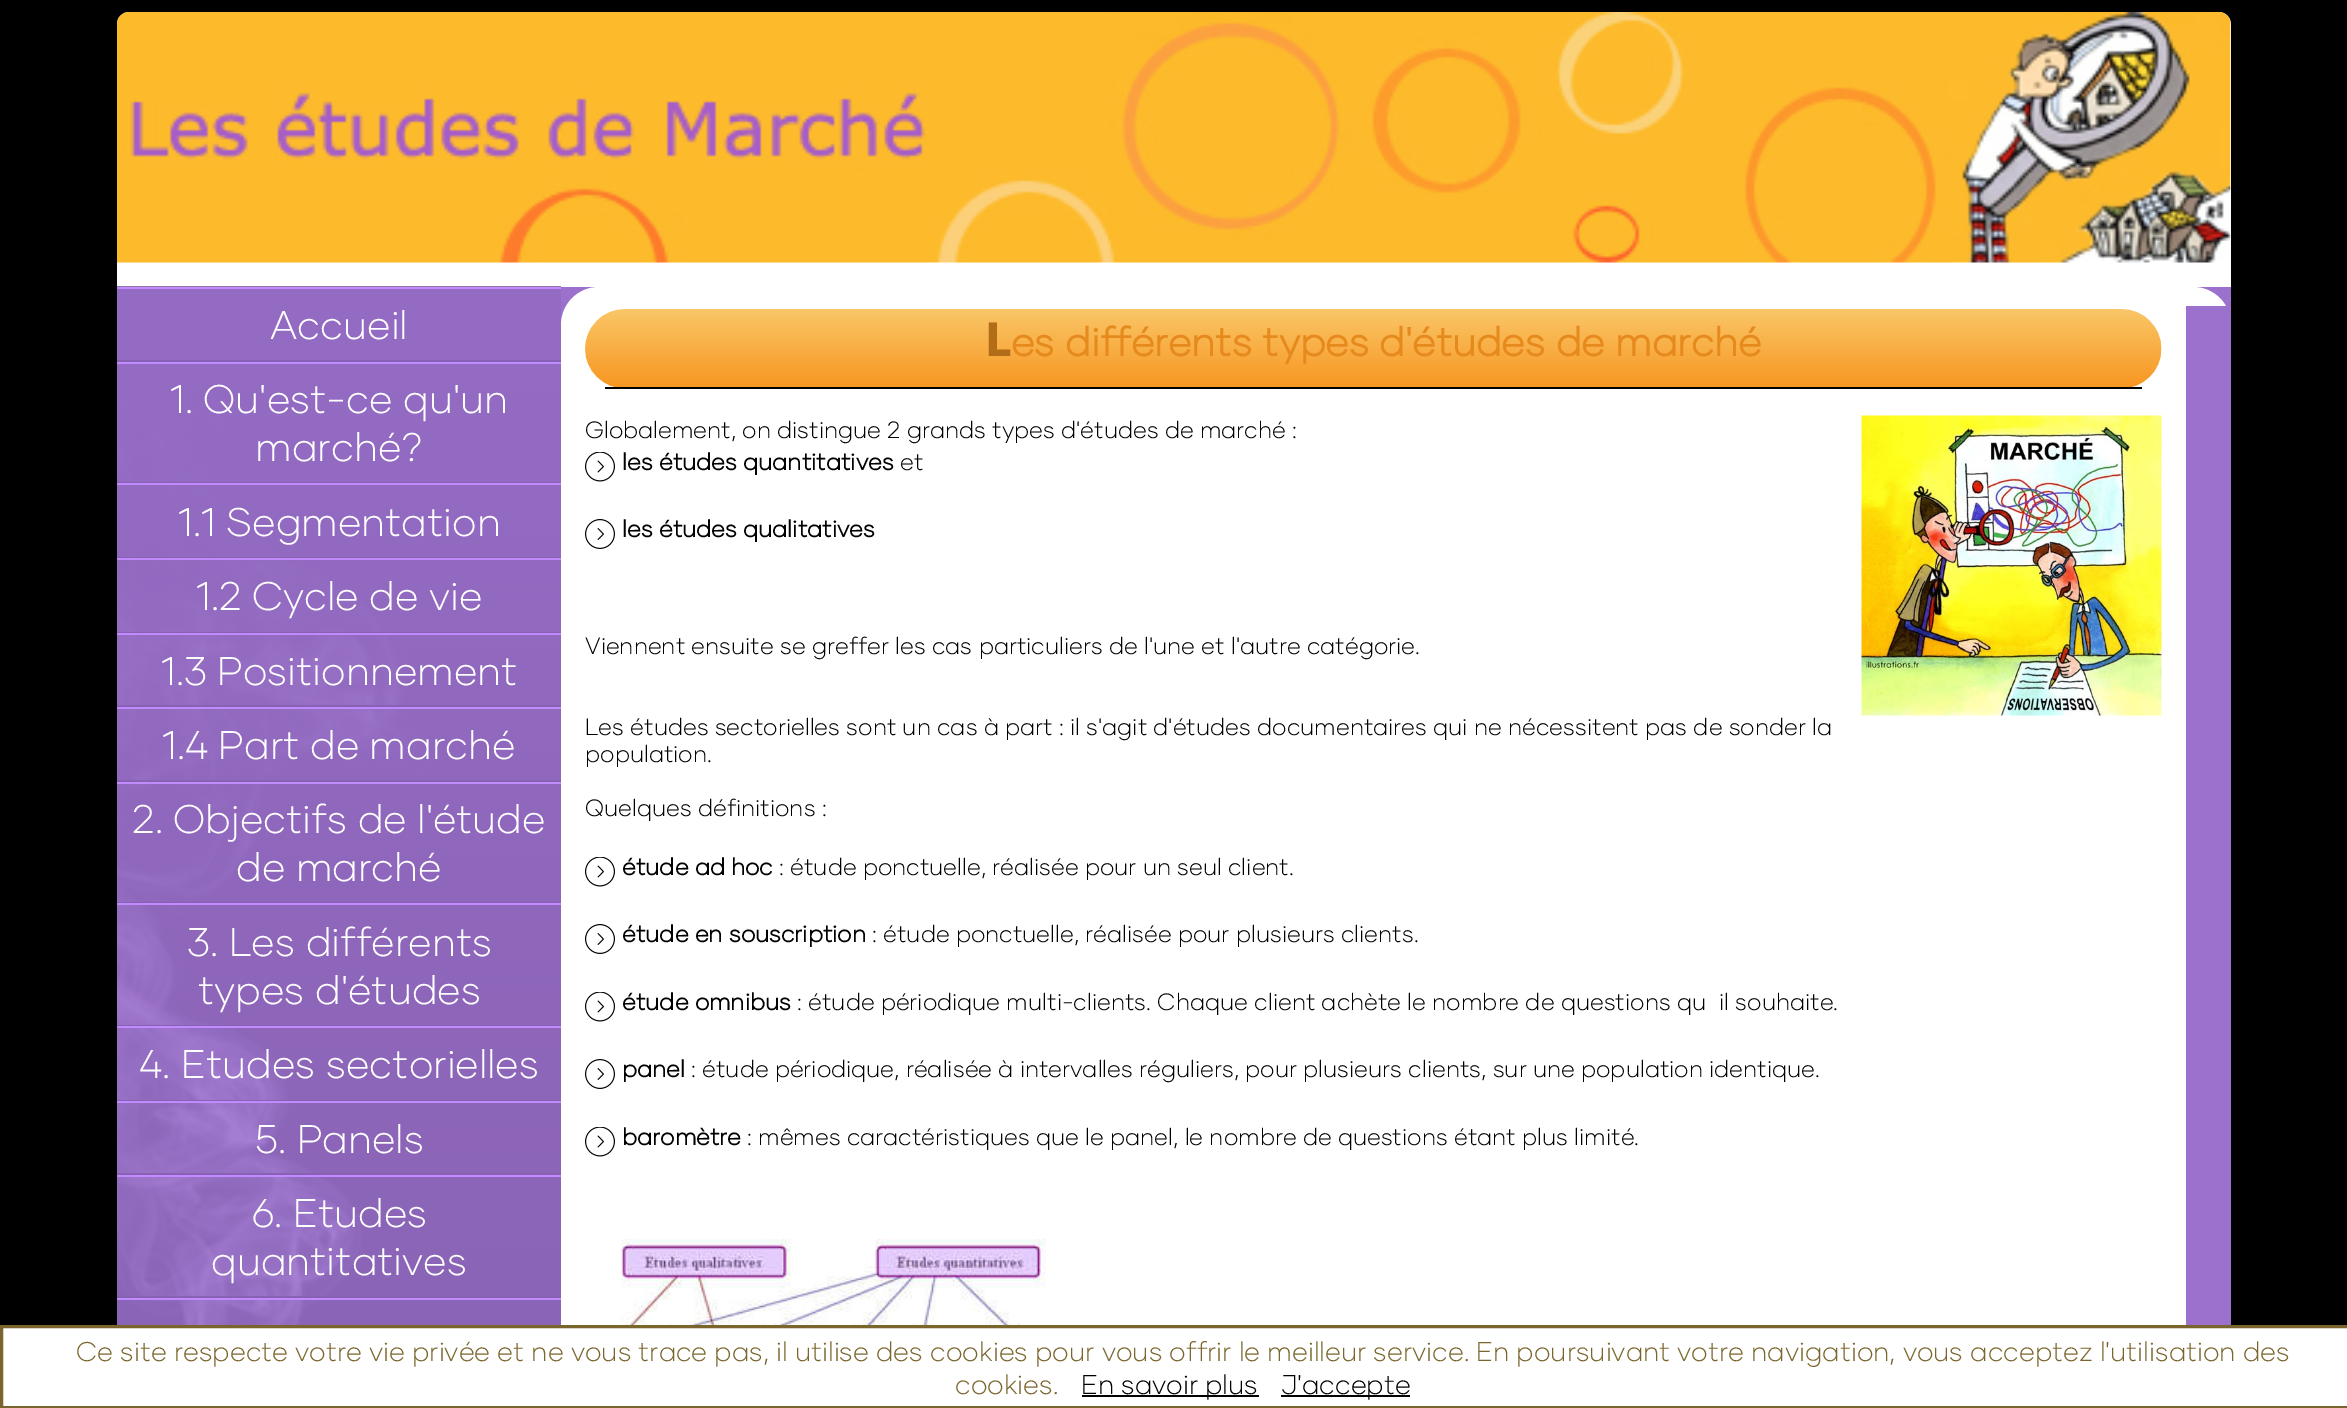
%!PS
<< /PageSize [2347 1408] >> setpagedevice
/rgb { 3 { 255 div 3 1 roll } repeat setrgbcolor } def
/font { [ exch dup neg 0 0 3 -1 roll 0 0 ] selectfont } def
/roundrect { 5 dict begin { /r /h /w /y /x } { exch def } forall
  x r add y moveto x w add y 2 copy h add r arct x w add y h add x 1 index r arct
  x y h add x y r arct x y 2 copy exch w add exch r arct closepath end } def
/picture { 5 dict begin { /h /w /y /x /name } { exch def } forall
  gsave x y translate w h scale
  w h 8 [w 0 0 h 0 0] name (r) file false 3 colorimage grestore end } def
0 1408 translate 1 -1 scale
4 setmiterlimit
0 0 0 rgb
0 0 2347 1408 rectfill
255 255 255 rgb
129 12 moveto 2219 12 lineto 2225.5 12 2231 17.5 2231 24 curveto 2231 287 lineto 117 287 lineto 117 24 lineto 117 17.5 122.5 12 129 12 curveto closepath fill
(img/1.rgb) 117 12 2114 251 picture
156 113 206 rgb
561 287 1670 38 rectfill
(img/2.rgb) 117 286 444 1039 picture
[
  [117 287 444 2 193 138 254]
  [117 360 444 2 135 97 178]
  [117 362 444 2 193 138 254]
  [117 482 444 1 135 97 178]
  [117 483 444 2 193 138 254]
  [117 557 444 1 135 97 178]
  [117 558 444 2 193 138 254]
  [117 632 444 1 135 97 178]
  [117 633 444 2 193 138 254]
  [117 705 444 2 135 97 178]
  [117 707 444 2 193 138 254]
  [117 780 444 2 135 97 178]
  [117 782 444 2 193 138 254]
  [117 902 444 1 135 97 178]
  [117 903 444 2 193 138 254]
  [117 1025 444 1 135 97 178]
  [117 1026 444 2 193 138 254]
  [117 1100 444 1 135 97 178]
  [117 1101 444 2 193 138 254]
  [117 1173 444 2 135 97 178]
  [117 1175 444 2 193 138 254]
  [117 1296 444 2 135 97 178]
  [117 1298 444 2 193 138 254]
] { aload pop rgb rectfill } forall
255 255 255 rgb
561 287 1670 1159 38 roundrect fill
156 113 206 rgb
2186 306 45 1019 rectfill
(img/3.rgb) 585 309 1577 78 picture
0 0 0 rgb
605 387 1537 2 rectfill
(img/4.rgb) 1861 415 301 301 picture
(img/5.rgb) 585 452 30 30 picture
(img/6.rgb) 585 519 30 30 picture
(img/5.rgb) 585 857 30 30 picture
(img/6.rgb) 585 924 30 30 picture
(img/5.rgb) 585 992 30 30 picture
(img/6.rgb) 585 1059 30 30 picture
(img/5.rgb) 585 1127 30 30 picture
(img/7.rgb) 585 1239 485 86 picture
255 255 255 rgb
1.5 1326.5 moveto 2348.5 1326.5 lineto 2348.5 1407.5 lineto 1.5 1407.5 lineto closepath gsave fill grestore
122 102 45 rgb
3 setlinewidth
stroke
0 0 0 rgb
1082 1395 177 2 rectfill
1281 1395 129 2 rectfill
/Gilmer-Light 39.9 font
255 255 255 rgb
[
  [(Accueil) 270 339]
  [(1. Qu'est-ce qu'un) 170 413]
  [(marché?) 255 461]
  [(1.1 Segmentation) 178 536]
  [(1.2 Cycle de vie) 196 610]
  [(1.3 Positionnement) 161 685]
  [(1.4 Part de marché) 162 759]
  [(2. Objectifs de l'étude) 132 833]
  [(de marché) 236 881]
  [(3. Les différents) 187 956]
  [(types d'études) 198 1004]
  [(4. Etudes sectorielles) 139 1078]
  [(5. Panels) 255 1153]
  [(6. Etudes) 252 1227]
  [(quantitatives) 211 1275]
] { aload pop moveto show } forall
/NotoSans-ExtraBold 47 font
179 108 23 rgb
985 356 moveto (L) show
/Gilmer-Bold 39.9 font
230 138 30 rgb
1011 356 moveto (es différents types d'études de marché) show
/Gilmer-Light 23.48 font
0 0 0 rgb
585 438 moveto (Globalement, on distingue 2 grands types d'études de marché :) show
/Gilmer-Bold 23.48 font
622 470 moveto (les études quantitatives) show
/Gilmer-Light 23.48 font
900 470 moveto (et) show
/Gilmer-Bold 23.48 font
622 537 moveto (les études qualitatives) show
/Gilmer-Light 23.48 font
[
  [(Viennent ensuite se greffer les cas particuliers de l'une et l'autre catégorie.) 585 654]
  [(Les études sectorielles sont un cas à part : il s'agit d'études documentaires qui ne nécessitent pas de sonder la) 585 735]
  [(population.) 585 762]
  [(Quelques définitions :) 585 816]
] { aload pop moveto show } forall
/Gilmer-Bold 23.48 font
622 875 moveto (étude ad hoc) show
/Gilmer-Light 23.48 font
779 875 moveto (: étude ponctuelle, réalisée pour un seul client.) show
/Gilmer-Bold 23.48 font
622 942 moveto (étude en souscription) show
/Gilmer-Light 23.48 font
872 942 moveto (: étude ponctuelle, réalisée pour plusieurs clients.) show
/Gilmer-Bold 23.48 font
622 1010 moveto (étude omnibus) show
/Gilmer-Light 23.48 font
797 1010 moveto (: étude périodique multi-clients. Chaque client achète le nombre de questions qu) show
1719 1010 moveto (il souhaite.) show
/Gilmer-Bold 23.48 font
622 1077 moveto (panel) show
/Gilmer-Light 23.48 font
691 1077 moveto (: étude périodique, réalisée à intervalles réguliers, pour plusieurs clients, sur une population identique.) show
/Gilmer-Bold 23.48 font
622 1145 moveto (baromètre) show
/Gilmer-Light 23.48 font
747 1145 moveto (: mêmes caractéristiques que le panel, le nombre de questions étant plus limité.) show
/Gilmer-Light 27 font
122 102 45 rgb
76 1361 moveto (Ce site respecte votre vie privée et ne vous trace pas, il utilise des cookies pour vous offrir le meilleur service. En poursuivant votre navigation, vous acceptez l'utilisation des) show
955 1394 moveto (cookies.) show
0 0 0 rgb
1081 1394 moveto (En savoir plus) show
1281 1394 moveto (J'accepte) show
showpage
